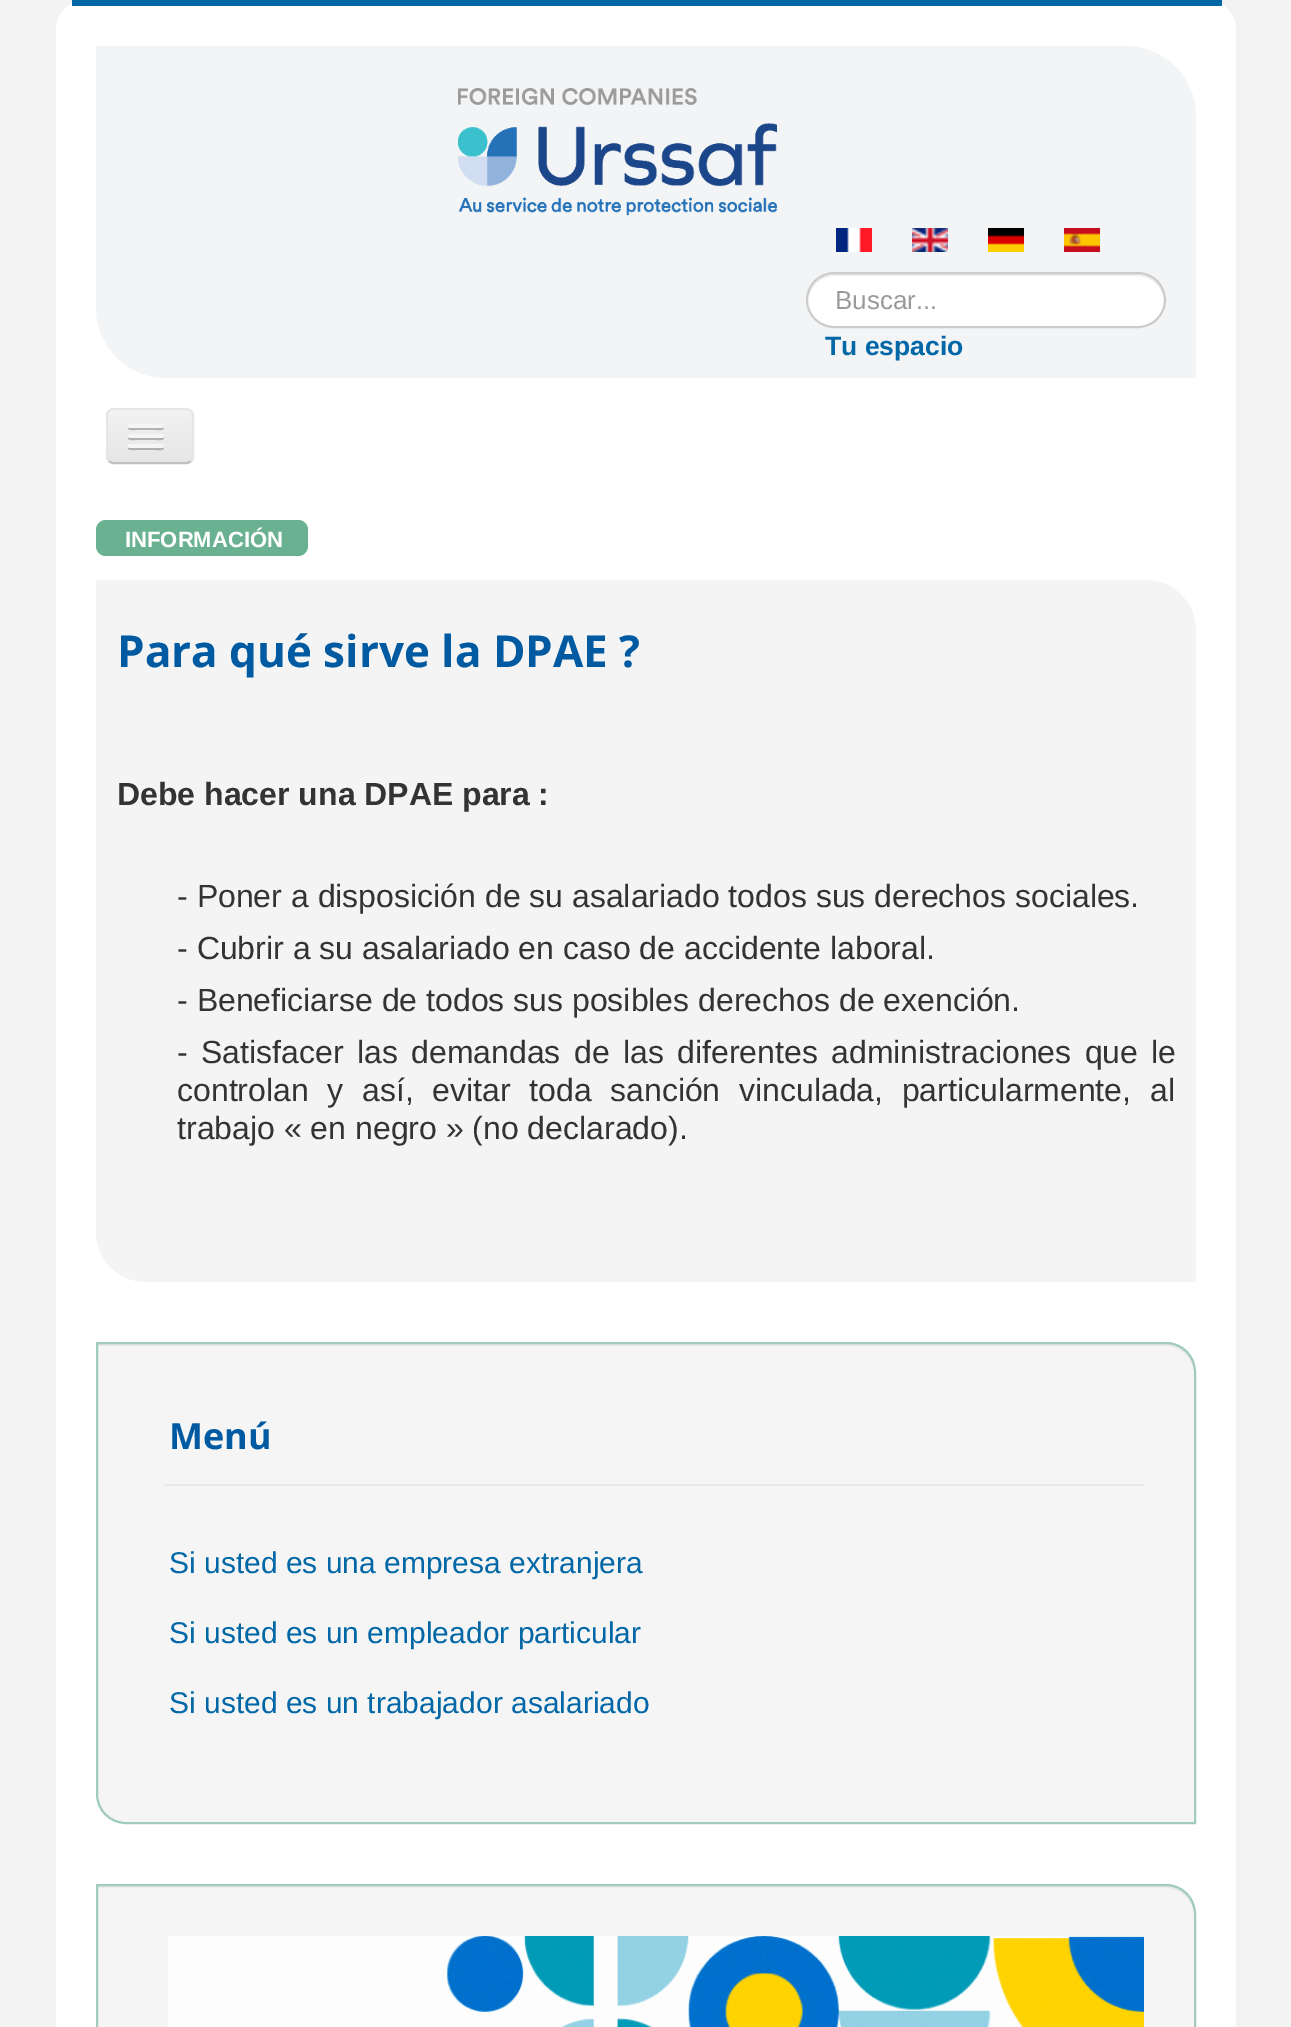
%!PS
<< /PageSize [1291 2027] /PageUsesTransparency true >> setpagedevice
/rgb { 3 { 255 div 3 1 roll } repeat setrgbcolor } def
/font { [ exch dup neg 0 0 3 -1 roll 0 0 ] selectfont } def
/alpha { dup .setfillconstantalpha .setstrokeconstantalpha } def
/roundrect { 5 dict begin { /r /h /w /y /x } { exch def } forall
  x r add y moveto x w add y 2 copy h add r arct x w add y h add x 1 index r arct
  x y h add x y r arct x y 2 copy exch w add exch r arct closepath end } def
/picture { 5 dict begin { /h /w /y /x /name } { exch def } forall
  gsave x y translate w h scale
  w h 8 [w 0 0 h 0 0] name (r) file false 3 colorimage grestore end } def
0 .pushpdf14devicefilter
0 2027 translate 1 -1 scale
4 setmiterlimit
243 243 243 rgb
0 0 1291 2027 rectfill
255 255 255 rgb
56 0 1180 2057 30 roundrect fill
2 103 166 rgb
72 0 1150 6 rectfill
242 244 245 rgb
96 46 moveto 1126 46 lineto 1164.5 46 1196 77.5 1196 116 curveto 1196 378 lineto 166 378 lineto 127.5 378 96 346.5 96 308 curveto closepath fill
(img/1.rgb) 458 88 319 128 picture
(img/2.rgb) 836 228 36 24 picture
(img/3.rgb) 912 228 36 24 picture
(img/4.rgb) 988 228 36 24 picture
(img/5.rgb) 1064 228 36 24 picture
255 255 255 rgb
806 272 360 56 28 roundrect fill
236 236 236 rgb
834 276 moveto 1138 276 lineto 1152 276 1163 287 1164 301 curveto 1164 300 lineto 1164 286 1152 274 1138 274 curveto 834 274 lineto 820 274 808 286 808 300 curveto 808 301 lineto 809 287 820 276 834 276 curveto closepath fill
204 204 204 rgb
2 setlinewidth
807 273 358 54 27 roundrect stroke
gsave
106 408 88 56 8 roundrect clip newpath
gsave 106 410 moveto 194 410 lineto 194 462 lineto 106 462 lineto closepath clip newpath
<< /ShadingType 2 /ColorSpace /DeviceRGB /Coords [150 410 150 462] /Extend [true true] /Function << /FunctionType 2 /Domain [0 1] /C0 [0.949 0.949 0.949] /C1 [0.902 0.902 0.902] /N 1 >> >> shfill grestore
grestore
243 243 243 rgb
114 412 moveto 186 412 lineto 189 412 192 415 192 418 curveto 192 407 183 410 174 410 curveto 126 410 lineto 117 410 108 407 108 418 curveto 108 415 111 412 114 412 curveto closepath fill
191 191 191 rgb
191 461 moveto 189.5 462.5 188 463 186 463 curveto 114 463 lineto 112 463 110.5 462.5 109 461 curveto stroke
230 230 230 rgb
109 461 moveto 107.5 459.5 107 458 107 456 curveto 107 416 lineto 107 414 107.5 412.5 109 411 curveto 110.5 409.5 112 409 114 409 curveto 186 409 lineto 188 409 189.5 409.5 191 411 curveto 192.5 412.5 193 414 193 416 curveto 193 456 lineto 193 458 192.5 459.5 191 461 curveto stroke
179 179 179 rgb
128.5 427 moveto 126 431 135 430 135.5 430 curveto 156.5 430 lineto 157 430 166 431 163.5 427 curveto 163.5 427.5 162.5 428 162 428 curveto 130 428 lineto 129.5 428 128.5 427.5 128.5 427 curveto closepath fill
245 245 245 rgb
128 424 36 4 2 roundrect fill
176 176 176 rgb
128.5 437 moveto 126 441 135 440 135.5 440 curveto 156.5 440 lineto 157 440 166 441 163.5 437 curveto 163.5 437.5 162.5 438 162 438 curveto 130 438 lineto 129.5 438 128.5 437.5 128.5 437 curveto closepath fill
245 245 245 rgb
128 434 36 4 2 roundrect fill
175 175 175 rgb
128.5 447 moveto 126 451 135 450 135.5 450 curveto 156.5 450 lineto 157 450 166 451 163.5 447 curveto 163.5 447.5 162.5 448 162 448 curveto 130 448 lineto 129.5 448 128.5 447.5 128.5 447 curveto closepath fill
245 245 245 rgb
128 444 36 4 2 roundrect fill
106 177 146 rgb
96 520 212 36 10 roundrect fill
244 244 244 rgb
96 580 moveto 1146 580 lineto 1173.5 580 1196 602.5 1196 630 curveto 1196 1282 lineto 146 1282 lineto 118.5 1282 96 1259.5 96 1232 curveto closepath fill
245 245 245 rgb
96 1342 moveto 1166 1342 lineto 1182.5 1342 1196 1355.5 1196 1372 curveto 1196 1824 lineto 126 1824 lineto 109.5 1824 96 1810.5 96 1794 curveto closepath fill
233 233 233 rgb
98 1346 moveto 1166 1346 lineto 1181 1346 1194 1359 1194 1374 curveto 1194 1372 lineto 1194 1357 1181 1344 1166 1344 curveto 98 1344 lineto closepath fill
0.43 alpha
50 150 105 rgb
97 1343 moveto 1166 1343 lineto 1182 1343 1195 1356 1195 1372 curveto 1195 1823 lineto 126 1823 lineto 110 1823 97 1810 97 1794 curveto closepath stroke
1 alpha
232 232 232 rgb
164 1484 980 2 rectfill
245 245 245 rgb
96 1884 moveto 1166 1884 lineto 1182.5 1884 1196 1897.5 1196 1914 curveto 1196 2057 lineto 126 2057 lineto 109.5 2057 96 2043.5 96 2027 curveto closepath fill
233 233 233 rgb
98 1888 moveto 1166 1888 lineto 1181 1888 1194 1901 1194 1916 curveto 1194 1914 lineto 1194 1899 1181 1886 1166 1886 curveto 98 1886 lineto closepath fill
0.43 alpha
50 150 105 rgb
97 1885 moveto 1166 1885 lineto 1182 1885 1195 1898 1195 1914 curveto 1195 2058 lineto 126 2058 lineto 110 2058 97 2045 97 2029 curveto closepath stroke
1 alpha
(img/6.rgb) 168 1936 976 91 picture
/LiberationSans-Regular 26 font
153 153 153 rgb
835 309 moveto (Buscar...) show
/LiberationSans-Bold 26.5 font
2 103 166 rgb
825 355 moveto (Tu espacio) show
/LiberationSans-Bold 22 font
255 255 255 rgb
125 547 moveto (INFORMACIÓN) show
/OpenSans-Bold 44 font
0 90 161 rgb
117 667 moveto (Para qué sirve la DPAE ?) show
/LiberationSans-Bold 32 font
51 51 51 rgb
117 805 moveto (Debe hacer una DPAE para :) show
/LiberationSans-Regular 32 font
[
  [(- Poner a disposición de su asalariado todos sus derechos sociales.) 177 907]
  [(- Cubrir a su asalariado en caso de accidente laboral.) 177 959]
  [(- Beneficiarse de todos sus posibles derechos de exención.) 177 1011]
] { aload pop moveto show } forall
177 1063 moveto 4.5 0 32 (- Satisfacer las demandas de las diferentes administraciones que le) widthshow
177 1101 moveto 9.75 0 32 (controlan y así, evitar toda sanción vinculada, particularmente, al) widthshow
177 1139 moveto (trabajo « en negro » \(no declarado\).) show
/OpenSans-Bold 36 font
0 90 161 rgb
169 1449 moveto (Menú) show
/LiberationSans-Regular 30 font
2 103 166 rgb
[
  [(Si usted es una empresa extranjera) 169 1573]
  [(Si usted es un empleador particular) 169 1643]
  [(Si usted es un trabajador asalariado) 169 1713]
] { aload pop moveto show } forall
.poppdf14devicefilter showpage
